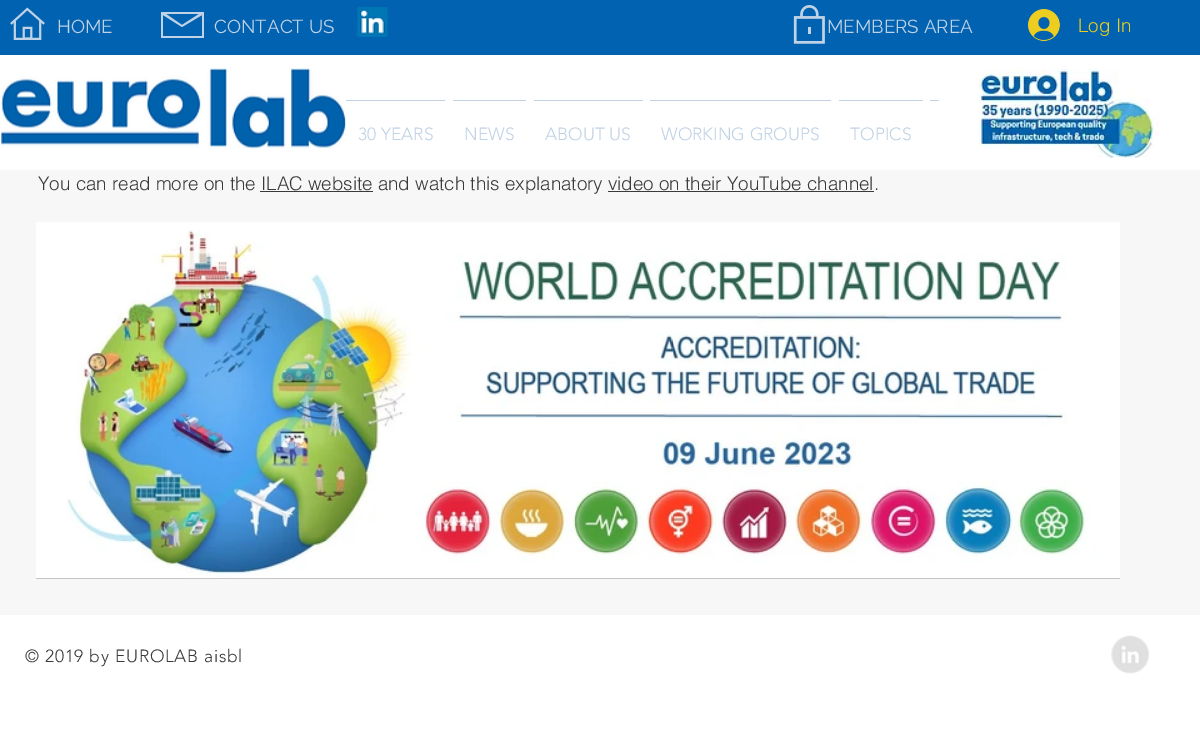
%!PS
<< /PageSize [1200 744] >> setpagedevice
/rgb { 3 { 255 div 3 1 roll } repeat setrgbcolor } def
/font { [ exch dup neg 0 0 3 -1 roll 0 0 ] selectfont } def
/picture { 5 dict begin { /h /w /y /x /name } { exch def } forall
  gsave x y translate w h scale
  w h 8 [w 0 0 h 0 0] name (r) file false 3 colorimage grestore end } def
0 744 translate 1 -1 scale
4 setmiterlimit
247 247 247 rgb
0 0 1200 744 rectfill
0 98 176 rgb
0 0 1200 55 rectfill
(img/1.rgb) 10 7 35 33 picture
192 210 229 rgb
161 12 moveto 161 38 lineto 204 38 lineto 204 12 lineto closepath 199 14 moveto 182 25 lineto 166 14 lineto closepath 163 36 moveto 163 15 lineto 182 27 lineto 202 15 lineto 202 36 lineto closepath fill
(img/2.rgb) 357 7 31 30 picture
255 255 255 rgb
0 55 1200 115 rectfill
(img/3.rgb) 1 67 346 82 picture
[
  [930 100 9 1 192 210 229]
  [346 100 99 1 192 210 229]
  [453 100 73 1 192 210 229]
  [534 100 109 1 192 210 229]
  [650 100 181 1 192 210 229]
  [839 100 84 1 192 210 229]
] { aload pop rgb rectfill } forall
(img/4.rgb) 793 5 32 39 picture
(img/5.rgb) 1028 9 32 32 picture
(img/6.rgb) 938 68 221 90 picture
[
  [260 191 113 1 59 58 58]
  [608 191 266 1 59 58 58]
  [36 578 1084 1 198 198 198]
] { aload pop rgb rectfill } forall
(img/7.rgb) 36 222 1084 356 picture
255 255 255 rgb
0 615 1200 129 rectfill
(img/8.rgb) 1111 635 38 39 picture
/Raleway-Regular 18.75 font
192 210 229 rgb
57 33 moveto (HOME) show
214 33 moveto (CONTACT US) show
/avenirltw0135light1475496-Light 17.5 font
[
  [(30 YEARS) 358 140]
  [(NEWS) 464 140]
  [(ABOUT US) 545 140]
  [(WORKING GROUPS) 661 140]
  [(TOPICS) 850 140]
] { aload pop moveto show } forall
/Raleway-Regular 18.75 font
827 33 moveto (MEMBERS AREA) show
/helvetica-Light 18.75 font
237 205 31 rgb
1078 32 moveto (Log In) show
59 58 58 rgb
38 190 moveto (You can read more on the ILAC website and watch this explanatory video on their YouTube channel.) show
/avenirltw0135light1475496-Light 17.5 font
25 662 moveto 0.7 0 (© 2019 by EUROLAB aisbl) ashow
showpage
